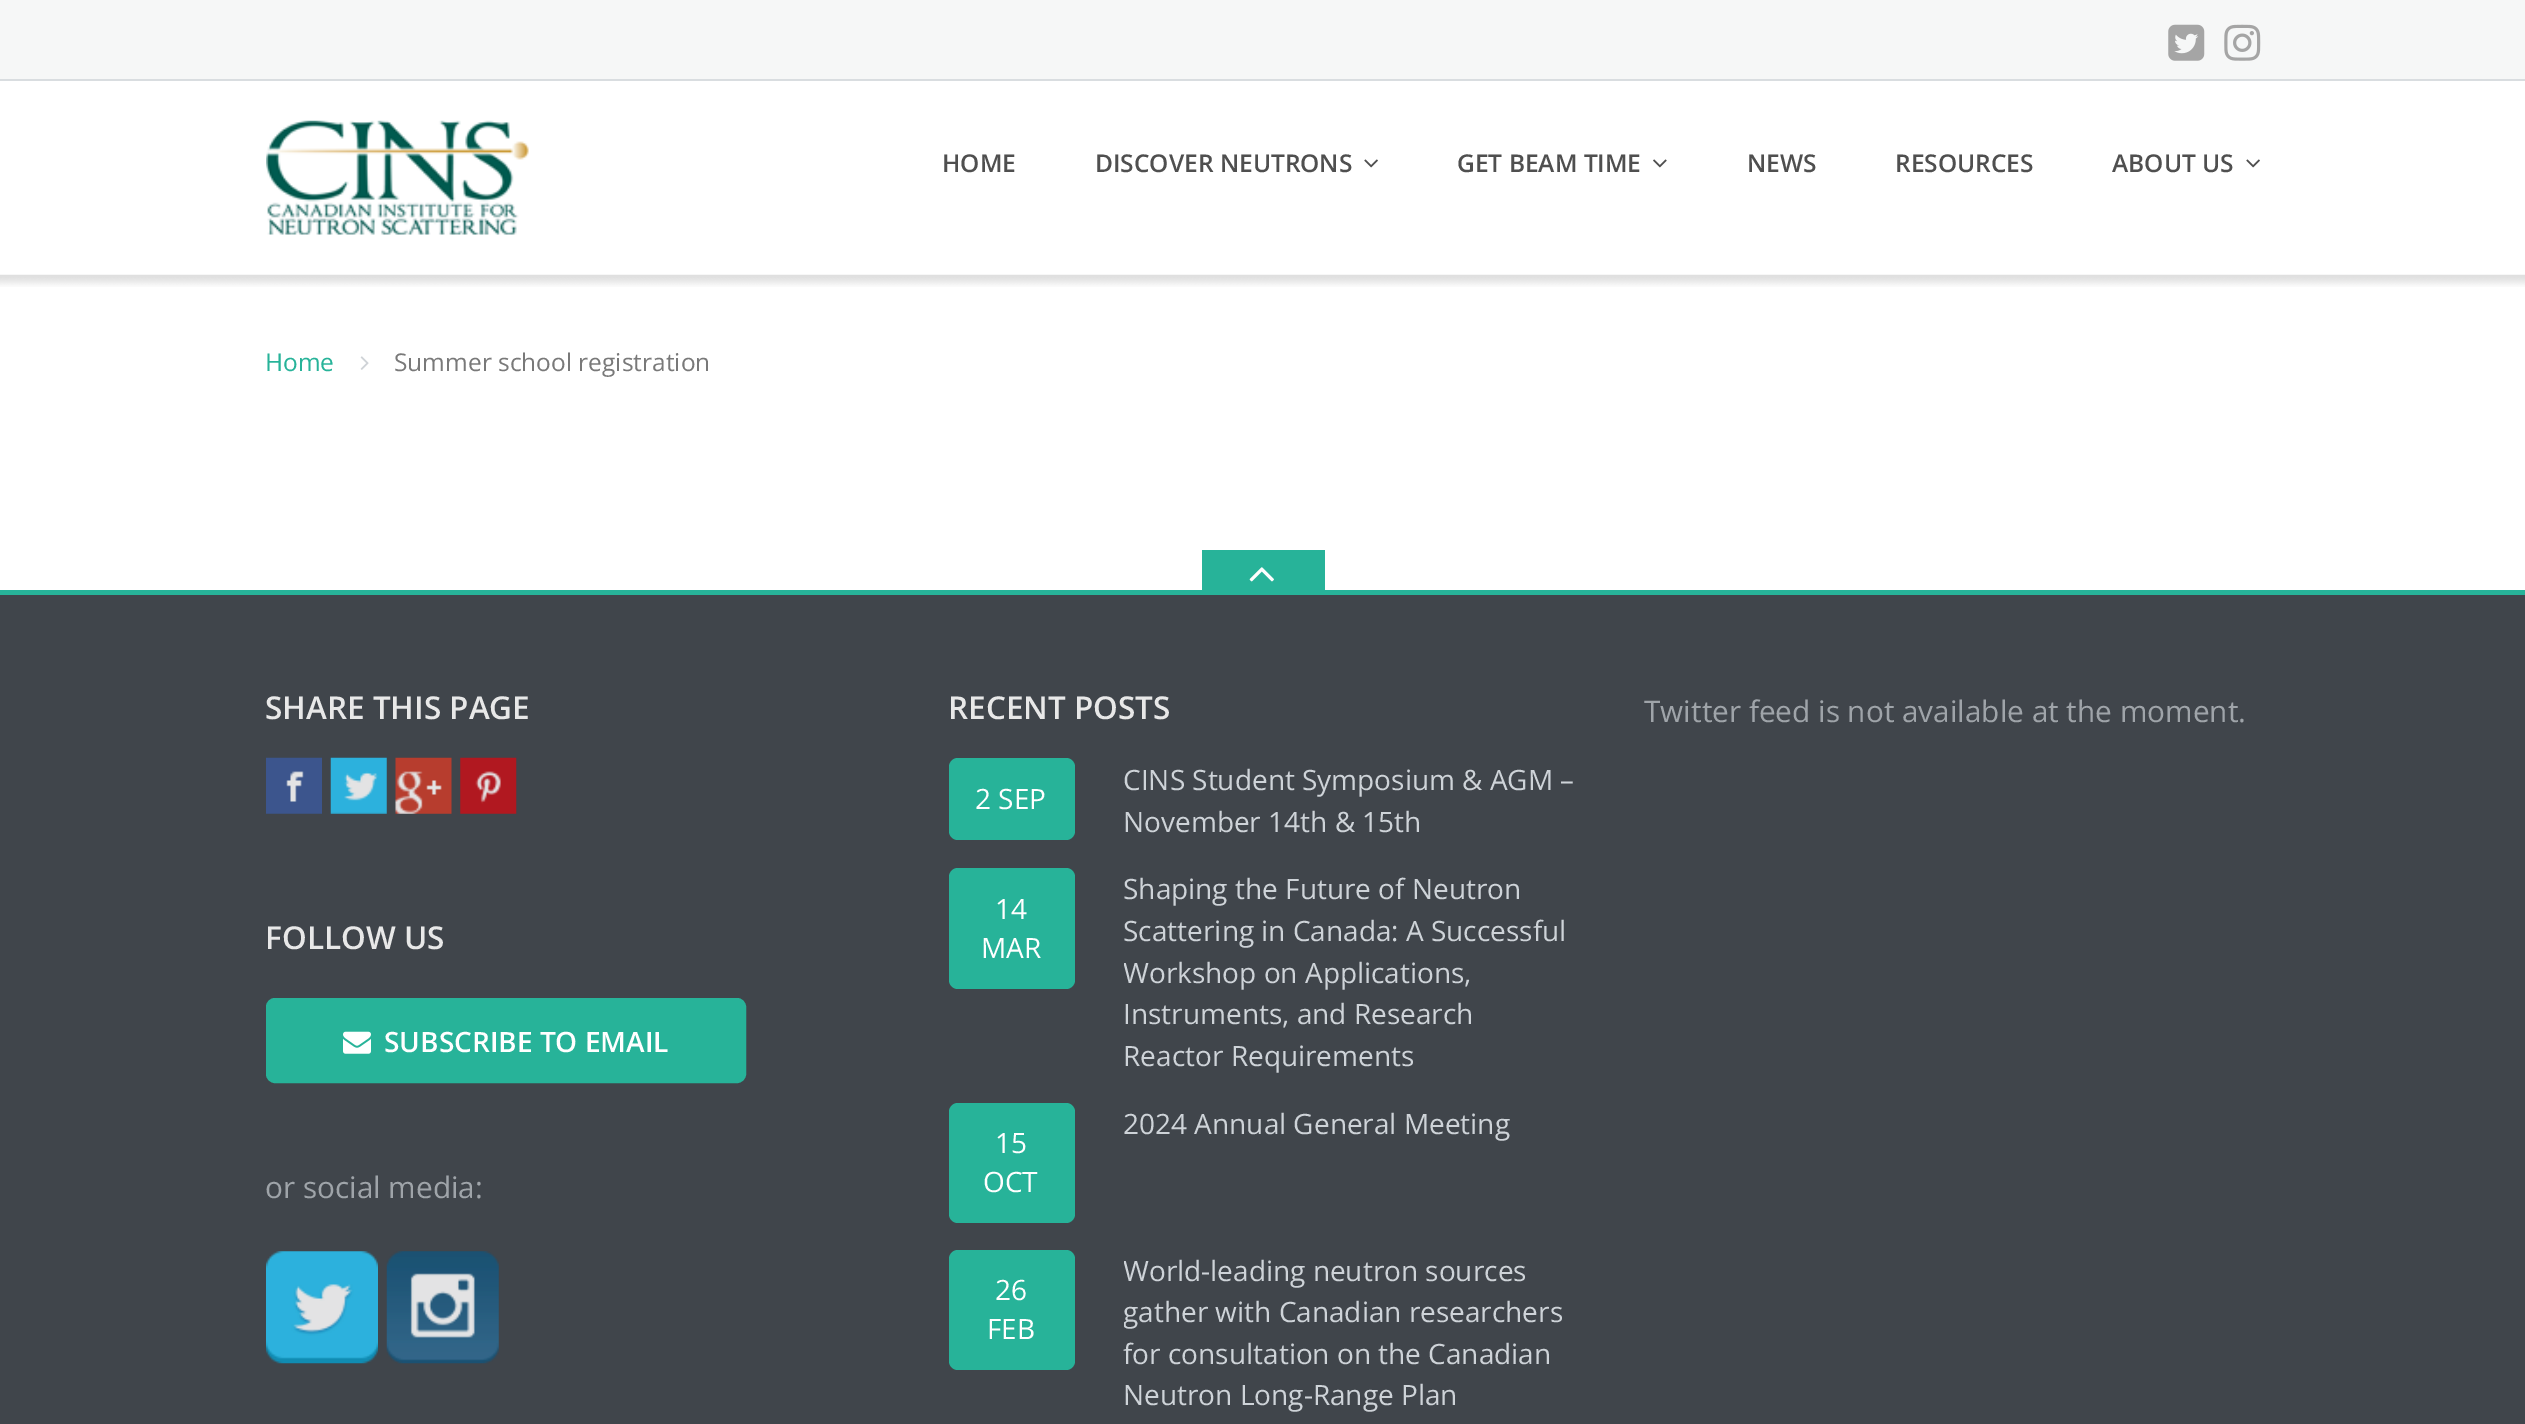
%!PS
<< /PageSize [2525 1424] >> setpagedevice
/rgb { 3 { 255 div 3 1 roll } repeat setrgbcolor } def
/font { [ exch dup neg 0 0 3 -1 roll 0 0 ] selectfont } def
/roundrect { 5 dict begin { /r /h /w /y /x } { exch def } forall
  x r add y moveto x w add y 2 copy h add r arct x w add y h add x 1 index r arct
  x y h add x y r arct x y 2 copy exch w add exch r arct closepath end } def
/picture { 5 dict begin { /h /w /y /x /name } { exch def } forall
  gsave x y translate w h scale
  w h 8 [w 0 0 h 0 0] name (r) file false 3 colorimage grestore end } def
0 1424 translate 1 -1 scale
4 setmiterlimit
255 255 255 rgb
0 0 2525 1424 rectfill
246 247 247 rgb
0 0 2525 79 rectfill
217 221 224 rgb
0 79 2525 2 rectfill
(img/1.rgb) 2168 24 37 37 picture
(img/2.rgb) 2224 24 37 37 picture
(img/3.rgb) 266 120 263 115 picture
(img/4.rgb) 1364 159 14 9 picture
(img/5.rgb) 1653 159 14 9 picture
(img/4.rgb) 2246 159 14 9 picture
(img/6.rgb) 0 274 2525 13 picture
(img/7.rgb) 360 356 9 14 picture
39 179 153 rgb
0 590 2525 5 rectfill
1202 550 123 40 rectfill
(img/8.rgb) 1249 567 25 15 picture
64 69 75 rgb
0 595 2525 829 rectfill
(img/9.rgb) 266 757 56 57 picture
(img/10.rgb) 330 757 57 57 picture
(img/11.rgb) 395 757 57 57 picture
(img/12.rgb) 460 757 57 57 picture
39 179 153 rgb
268 1000 476 81 7 roundrect gsave fill grestore
4 setlinewidth
stroke
(img/13.rgb) 343 1031 28 23 picture
(img/14.rgb) 266 1251 112 113 picture
(img/15.rgb) 386 1251 113 113 picture
949 758 126 82 9 roundrect fill
949 868 126 121 9 roundrect fill
949 1103 126 120 9 roundrect fill
949 1250 126 120 9 roundrect fill
/OpenSans-SemiBold 24.5 font
79 79 79 rgb
[
  [(HOME) 942 172]
  [(DISCOVER NEUTRONS) 1095 172]
  [(GET BEAM TIME) 1457 172]
  [(NEWS) 1747 172]
  [(RESOURCES) 1895 172]
  [(ABOUT US) 2112 172]
] { aload pop moveto show } forall
/OpenSans-Regular 24.5 font
39 179 153 rgb
265 371 moveto (Home) show
121 121 121 rgb
394 371 moveto (Summer school registration) show
/OpenSans-SemiBold 31.5 font
232 232 232 rgb
265 719 moveto (SHARE THIS PAGE) show
265 949 moveto (FOLLOW US) show
/OpenSans-SemiBold 28 font
255 255 255 rgb
384 1052 moveto (SUBSCRIBE TO EMAIL) show
/OpenSans-Regular 29.75 font
159 164 169 rgb
265 1198 moveto (or social media:) show
/OpenSans-SemiBold 31.5 font
232 232 232 rgb
948 719 moveto (RECENT POSTS) show
/OpenSans-Regular 28 font
255 255 255 rgb
975 809 moveto (2 SEP) show
206 211 216 rgb
1123 790 moveto (CINS Student Symposium & AGM –) show
1123 832 moveto (November 14th & 15th) show
255 255 255 rgb
995 919 moveto (14) show
981 958 moveto (MAR) show
206 211 216 rgb
1123 899 moveto (Shaping the Future of Neutron) show
1123 941 moveto (Scattering in Canada: A Successful) show
gsave
1124 868 455 208 rectclip
1123 983 moveto (Workshop on Applications,) show
grestore
[
  [(Instruments, and Research) 1123 1024]
  [(Reactor Requirements) 1123 1066]
  [(2024 Annual General Meeting) 1123 1134]
] { aload pop moveto show } forall
255 255 255 rgb
[
  [(15) 995 1153]
  [(OCT) 983 1192]
  [(26) 995 1300]
  [(FEB) 987 1339]
] { aload pop moveto show } forall
gsave
1124 1250 455 166 rectclip
206 211 216 rgb
1123 1281 moveto (World-leading neutron sources) show
1123 1322 moveto (gather with Canadian researchers) show
grestore
206 211 216 rgb
1123 1364 moveto (for consultation on the Canadian) show
1123 1405 moveto (Neutron Long-Range Plan) show
/OpenSans-Regular 29.75 font
159 164 169 rgb
1644 722 moveto (Twitter feed is not available at the moment.) show
showpage
